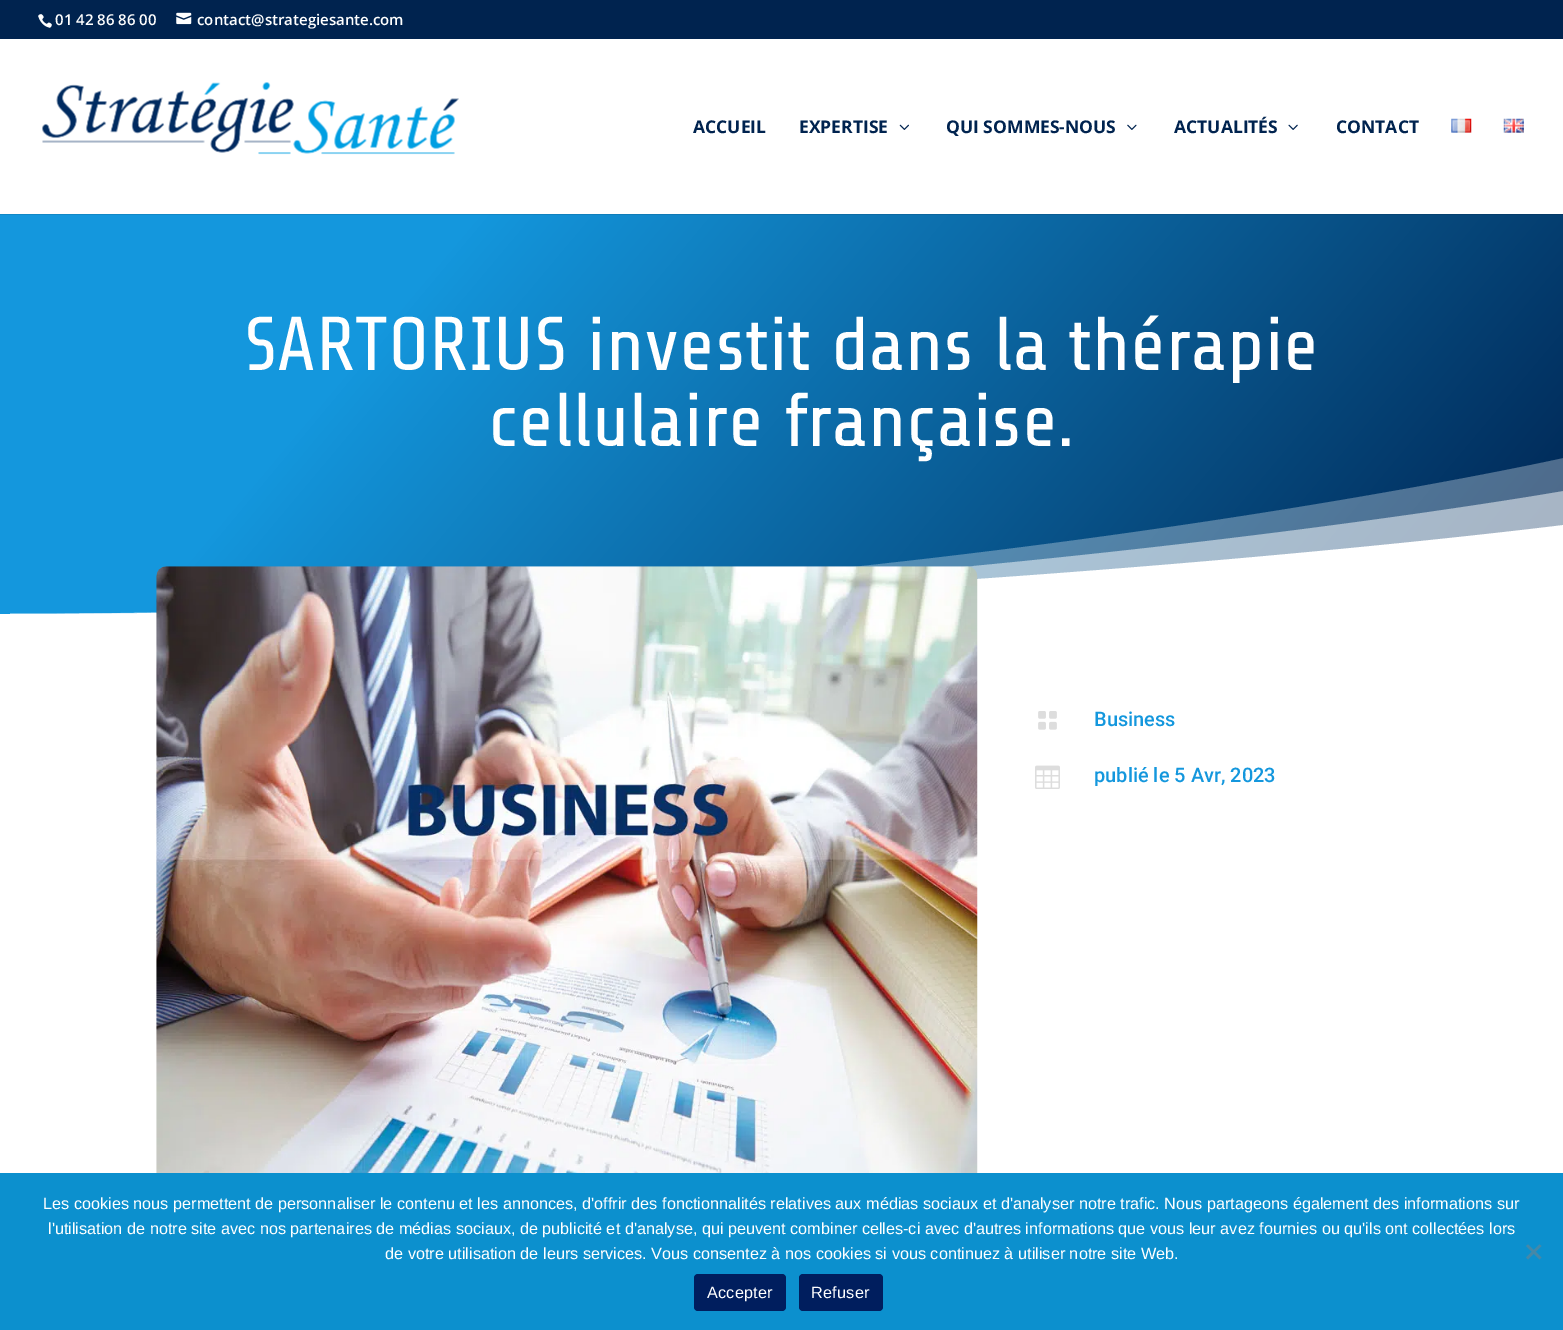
%!PS
<< /PageSize [1563 1330] /PageUsesTransparency true >> setpagedevice
/rgb { 3 { 255 div 3 1 roll } repeat setrgbcolor } def
/font { [ exch dup neg 0 0 3 -1 roll 0 0 ] selectfont } def
/alpha { dup .setfillconstantalpha .setstrokeconstantalpha } def
/roundrect { 5 dict begin { /r /h /w /y /x } { exch def } forall
  x r add y moveto x w add y 2 copy h add r arct x w add y h add x 1 index r arct
  x y h add x y r arct x y 2 copy exch w add exch r arct closepath end } def
/picture { 5 dict begin { /h /w /y /x /name } { exch def } forall
  gsave x y translate w h scale
  w h 8 [w 0 0 h 0 0] name (r) file false 3 colorimage grestore end } def
0 .pushpdf14devicefilter
0 1330 translate 1 -1 scale
4 setmiterlimit
255 255 255 rgb
0 0 1563 1330 rectfill
0 35 79 rgb
0 0 1563 39 rectfill
(img/1.rgb) 38 14 14 14 picture
(img/2.rgb) 176 12 16 13 picture
gsave 0 214 moveto 1563 214 lineto 1563 614 lineto 0 614 lineto closepath clip newpath
<< /ShadingType 2 /ColorSpace /DeviceRGB /Coords [225 -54 1339 881] /Extend [true true] /Function << /FunctionType 3 /Domain [0 1] /Functions [<< /FunctionType 2 /Domain [0 1] /C0 [0.078 0.592 0.867] /C1 [0.078 0.592 0.867] /N 1 >> << /FunctionType 2 /Domain [0 1] /C0 [0.078 0.592 0.867] /C1 [0 0.137 0.31] /N 1 >>] /Bounds [0.25] /Encode [0 1 0 1] >> >> shfill grestore
0.1 alpha
0 0 0 rgb
0 214 moveto 0 215 lineto 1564 215 lineto 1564 40 lineto 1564 214 lineto closepath fill
1 alpha
(img/3.rgb) 42 82 417 73 picture
(img/4.rgb) 899 124 10 6 picture
(img/5.rgb) 1127 124 10 6 picture
(img/6.rgb) 1288 124 10 6 picture
(img/7.rgb) 1451 118 21 15 picture
(img/8.rgb) 1503 118 21 15 picture
0.3 alpha
255 255 255 rgb
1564 614 moveto 0 614 lineto 864 614 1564 458 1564 458 curveto closepath fill
0.5 alpha
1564 614 moveto 0 614 lineto 864 614 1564 491 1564 491 curveto closepath fill
1 alpha
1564 614 moveto 0 614 lineto 864 614 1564 525 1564 525 curveto closepath fill
(img/9.rgb) 156 566 822 607 picture
(img/10.rgb) 1038 711 19 19 picture
(img/11.rgb) 1035 765 25 24 picture
12 144 206 rgb
0 1173 1563 157 rectfill
70 136 167 rgb
1539.5 1244.5 moveto 1541.5 1246 lineto 1528 1259.5 lineto 1526 1257.5 lineto closepath fill
1526 1246 moveto 1528 1244.5 lineto 1541.5 1257.5 lineto 1539.5 1259.5 lineto closepath fill
0 30 94 rgb
694 1274 92 37 4 roundrect fill
799 1274 84 37 4 roundrect fill
/OpenSans-SemiBold 15 font
255 255 255 rgb
55 25 moveto (01 42 86 86 00) show
197 25 moveto (contact@strategiesante.com) show
/OpenSans-Bold 17.5 font
0 35 79 rgb
[
  [(ACCUEIL) 693 133]
  [(EXPERTISE) 799 133]
  [(QUI SOMMES-NOUS) 946 133]
  [(ACTUALITÉS) 1174 133]
  [(CONTACT) 1336 133]
] { aload pop moveto show } forall
/ShareTech-Regular 76.25 font
255 255 255 rgb
244 370 moveto (SARTORIUS investit dans la thérapie) show
488 446 moveto (cellulaire française.) show
/Roboto-Medium 20 font
20 151 221 rgb
1094 726 moveto (Business) show
1094 782 moveto (publié le 5 Avr, 2023) show
/LiberationSans-Regular 16.25 font
255 255 255 rgb
[
  [(Les cookies nous permettent de personnaliser le contenu et les annonces, d'offrir des fonctionnalités relatives aux médias sociaux et d'analyser notre trafic. Nous partageons également des informations sur) 43 1209]
  [(l'utilisation de notre site avec nos partenaires de médias sociaux, de publicité et d'analyse, qui peuvent combiner celles-ci avec d'autres informations que vous leur avez fournies ou qu'ils ont collectées lors) 48 1234]
  [(de votre utilisation de leurs services. Vous consentez à nos cookies si vous continuez à utiliser notre site Web.) 385 1259]
] { aload pop moveto show } forall
707 1298 moveto 0.25 0 (Accepter) ashow
811 1298 moveto 0.25 0 (Refuser) ashow
.poppdf14devicefilter showpage
